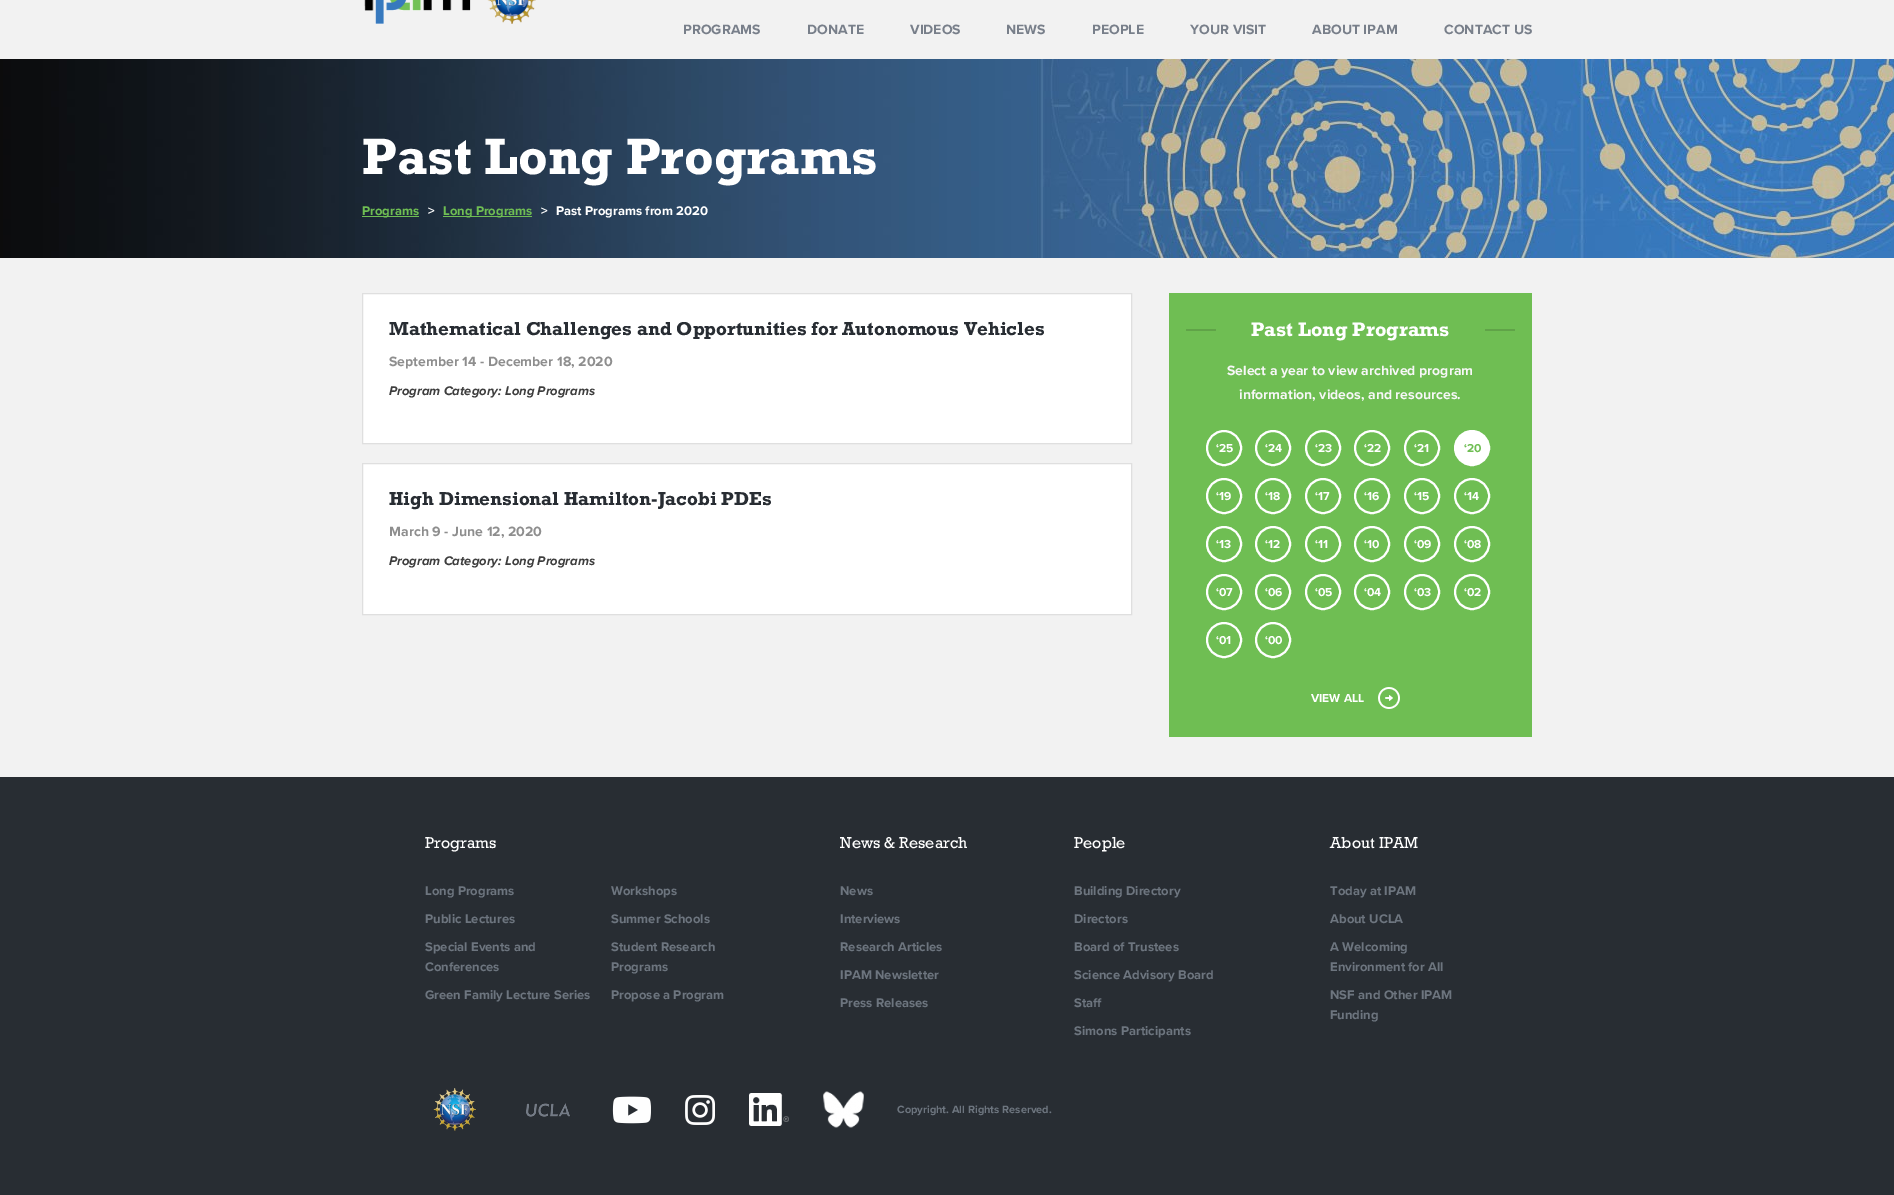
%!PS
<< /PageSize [1894 1195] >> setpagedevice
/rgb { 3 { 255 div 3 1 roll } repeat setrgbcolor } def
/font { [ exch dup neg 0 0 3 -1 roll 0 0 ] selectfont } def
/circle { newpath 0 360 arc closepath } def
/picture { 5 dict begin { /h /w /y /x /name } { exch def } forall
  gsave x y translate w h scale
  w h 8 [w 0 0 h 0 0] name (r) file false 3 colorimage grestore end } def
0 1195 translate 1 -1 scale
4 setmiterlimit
242 242 242 rgb
0 0 1894 1195 rectfill
(img/1.rgb) 364 0 172 24 picture
(img/2.rgb) 0 59 1894 199 picture
111 190 83 rgb
362 216 57 1 rectfill
443 216 89 1 rectfill
255 255 255 rgb
362.5 293.5 moveto 1131.5 293.5 lineto 1131.5 443.5 lineto 362.5 443.5 lineto closepath gsave fill grestore
223 223 223 rgb
stroke
255 255 255 rgb
362.5 463.5 moveto 1131.5 463.5 lineto 1131.5 614.5 lineto 362.5 614.5 lineto closepath gsave fill grestore
223 223 223 rgb
stroke
[
  [1169 293 363 444 111 190 83]
  [1186 329 30 2 96 163 72]
  [1485 329 30 2 96 163 72]
] { aload pop rgb rectfill } forall
255 255 255 rgb
2 setlinewidth
1224 448 17 circle stroke
1273 448 17 circle stroke
1323 448 17 circle stroke
1372 448 17 circle stroke
1422 448 17 circle stroke
1472 448 17 circle gsave fill grestore
stroke
1224 496 17 circle stroke
1273 496 17 circle stroke
1323 496 17 circle stroke
1372 496 17 circle stroke
1422 496 17 circle stroke
1472 496 17 circle stroke
1224 544 17 circle stroke
1273 544 17 circle stroke
1323 544 17 circle stroke
1372 544 17 circle stroke
1422 544 17 circle stroke
1472 544 17 circle stroke
1224 592 17 circle stroke
1273 592 17 circle stroke
1323 592 17 circle stroke
1372 592 17 circle stroke
1422 592 17 circle stroke
1472 592 17 circle stroke
1224 640 17 circle stroke
1273 640 17 circle stroke
(img/3.rgb) 1378 687 22 22 picture
40 45 51 rgb
0 777 1894 418 rectfill
(img/4.rgb) 433 1088 44 43 picture
(img/5.rgb) 526 1103 45 14 picture
(img/6.rgb) 612 1096 39 28 picture
(img/7.rgb) 685 1095 30 30 picture
(img/8.rgb) 749 1093 40 33 picture
(img/9.rgb) 823 1091 41 37 picture
/ProximaNova-Bold 14 font
120 127 138 rgb
[
  [(PROGRAMS) 683 34]
  [(DONATE) 807 34]
  [(VIDEOS) 910 34]
  [(NEWS) 1006 34]
  [(PEOPLE) 1092 34]
  [(YOUR VISIT) 1190 34]
  [(ABOUT IPAM) 1312 34]
  [(CONTACT US) 1444 34]
] { aload pop moveto show } forall
/Rockwell-Bold 52 font
255 255 255 rgb
362 174 moveto (Past Long Programs) show
/ProximaNova-Bold 13 font
111 190 83 rgb
362 215 moveto (Programs) show
255 255 255 rgb
428 215 moveto (>) show
111 190 83 rgb
443 215 moveto (Long Programs) show
255 255 255 rgb
541 215 moveto (>) show
556 215 moveto (Past Programs from 2020) show
/Rockwell-Bold 19 font
40 45 51 rgb
389 335 moveto (Mathematical Challenges and Opportunities for Autonomous Vehicles) show
/ProximaNova-Bold 14 font
142 142 142 rgb
389 366 moveto (September 14 - December 18, 2020) show
/ProximaNova-BoldItalic 13 font
62 62 62 rgb
389 395 moveto (Program Category: Long Programs) show
/Rockwell-Bold 19 font
40 45 51 rgb
389 505 moveto (High Dimensional Hamilton-Jacobi PDEs) show
/ProximaNova-Bold 14 font
142 142 142 rgb
389 536 moveto (March 9 - June 12, 2020) show
/ProximaNova-BoldItalic 13 font
62 62 62 rgb
389 565 moveto (Program Category: Long Programs) show
/Rockwell-Bold 20 font
255 255 255 rgb
1251 336 moveto (Past Long Programs) show
/ProximaNova-Bold 14 font
247 247 247 rgb
1227 375 moveto (Select a year to view archived program) show
1239 399 moveto (information, videos, and resources.) show
/ProximaNova-Bold 12 font
255 255 255 rgb
[
  [(‘25) 1216 452]
  [(‘24) 1265 452]
  [(‘23) 1315 452]
  [(‘22) 1364 452]
  [(‘21) 1414 452]
] { aload pop moveto show } forall
111 190 83 rgb
1464 452 moveto (‘20) show
255 255 255 rgb
[
  [(‘19) 1216 500]
  [(‘18) 1265 500]
  [(‘17) 1315 500]
  [(‘16) 1364 500]
  [(‘15) 1414 500]
  [(‘14) 1464 500]
  [(‘13) 1216 548]
  [(‘12) 1265 548]
  [(‘11) 1315 548]
  [(‘10) 1364 548]
  [(‘09) 1414 548]
  [(‘08) 1464 548]
  [(‘07) 1216 596]
  [(‘06) 1265 596]
  [(‘05) 1315 596]
  [(‘04) 1364 596]
  [(‘03) 1414 596]
  [(‘02) 1464 596]
  [(‘01) 1216 644]
  [(‘00) 1265 644]
  [(VIEW ALL) 1311 702]
] { aload pop moveto show } forall
/Rockwell-Regular 16 font
425 848 moveto (Programs) show
/ProximaNova-Bold 13 font
109 117 127 rgb
[
  [(Long Programs) 425 895]
  [(Workshops) 611 895]
  [(Public Lectures) 425 923]
  [(Summer Schools) 611 923]
  [(Special Events and) 425 951]
  [(Conferences) 425 971]
  [(Student Research) 611 951]
  [(Programs) 611 971]
  [(Green Family Lecture Series) 425 999]
  [(Propose a Program) 611 999]
] { aload pop moveto show } forall
/Rockwell-Regular 16 font
255 255 255 rgb
840 848 moveto (News & Research) show
/ProximaNova-Bold 13 font
109 117 127 rgb
[
  [(News) 840 895]
  [(Interviews) 840 923]
  [(Research Articles) 840 951]
  [(IPAM Newsletter) 840 979]
  [(Press Releases) 840 1007]
] { aload pop moveto show } forall
/Rockwell-Regular 16 font
255 255 255 rgb
1074 848 moveto (People) show
/ProximaNova-Bold 13 font
109 117 127 rgb
[
  [(Building Directory) 1074 895]
  [(Directors) 1074 923]
  [(Board of Trustees) 1074 951]
  [(Science Advisory Board) 1074 979]
  [(Staff) 1074 1007]
  [(Simons Participants) 1074 1035]
] { aload pop moveto show } forall
/Rockwell-Regular 16 font
255 255 255 rgb
1330 848 moveto (About IPAM) show
/ProximaNova-Bold 13 font
109 117 127 rgb
[
  [(Today at IPAM) 1330 895]
  [(About UCLA) 1330 923]
  [(A Welcoming) 1330 951]
  [(Environment for All) 1330 971]
  [(NSF and Other IPAM) 1330 999]
  [(Funding) 1330 1019]
] { aload pop moveto show } forall
/ProximaNova-Bold 11 font
897 1113 moveto (Copyright. All Rights Reserved.) show
showpage
